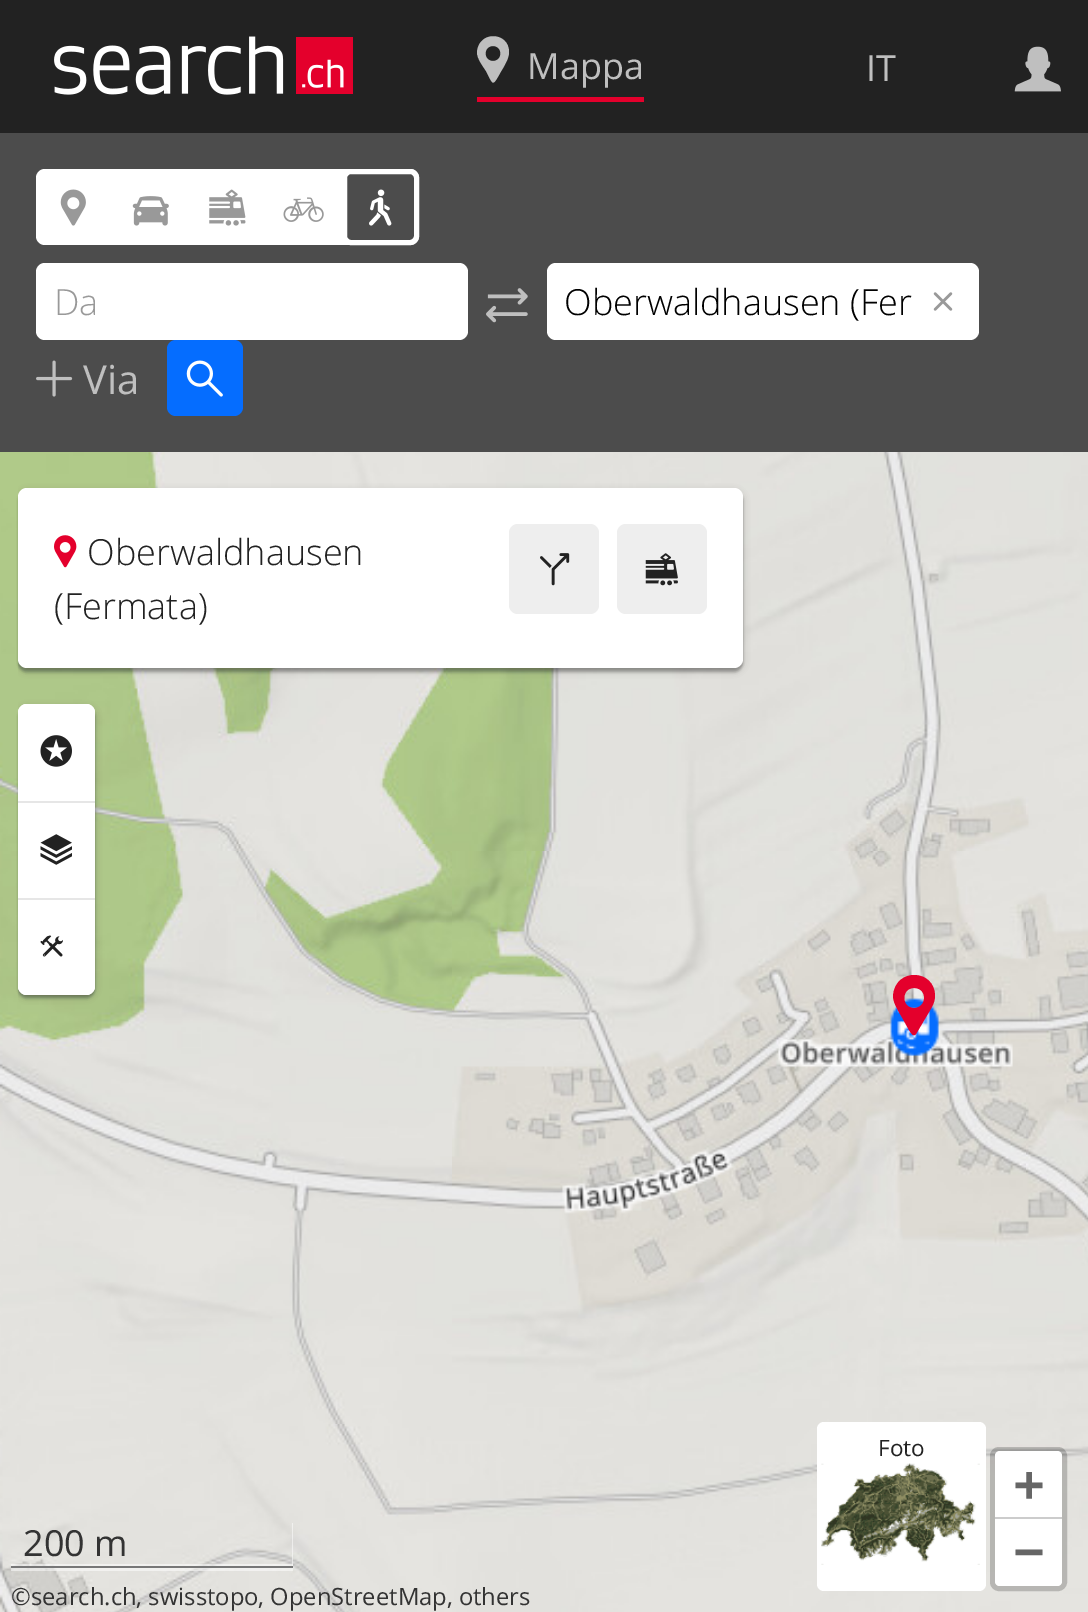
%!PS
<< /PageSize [1088 1612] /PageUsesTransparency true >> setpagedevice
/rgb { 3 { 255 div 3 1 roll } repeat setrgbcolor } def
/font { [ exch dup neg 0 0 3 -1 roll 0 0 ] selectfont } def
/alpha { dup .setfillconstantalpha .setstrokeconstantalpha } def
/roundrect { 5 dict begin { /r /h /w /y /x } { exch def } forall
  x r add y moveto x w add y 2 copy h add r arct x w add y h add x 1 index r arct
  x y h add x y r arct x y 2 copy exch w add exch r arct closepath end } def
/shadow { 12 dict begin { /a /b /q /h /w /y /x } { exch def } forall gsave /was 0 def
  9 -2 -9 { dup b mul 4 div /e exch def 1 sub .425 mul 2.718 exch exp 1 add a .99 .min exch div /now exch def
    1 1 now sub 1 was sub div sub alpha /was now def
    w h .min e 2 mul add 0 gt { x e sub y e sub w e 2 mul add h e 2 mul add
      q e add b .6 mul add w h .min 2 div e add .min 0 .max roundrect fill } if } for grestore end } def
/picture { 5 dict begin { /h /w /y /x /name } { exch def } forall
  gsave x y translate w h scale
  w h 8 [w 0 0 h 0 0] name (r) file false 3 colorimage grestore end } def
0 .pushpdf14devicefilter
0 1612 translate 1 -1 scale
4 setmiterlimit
255 255 255 rgb
0 0 1088 1612 rectfill
34 34 34 rgb
0 0 1088 133 rectfill
(img/1.rgb) 54 36 299 59 picture
228 0 44 rgb
477 97 167 5 rectfill
191 191 191 rgb
509 52 moveto 509 32 479 30 477 52 curveto 477 59 483 66 486 71 curveto 493 84 492 87 499 75 curveto 502 69 509 60 509 52 curveto closepath 493 61 moveto 483 61 483 46 493 46 curveto 503 46 503 61 493 61 curveto closepath fill
(img/2.rgb) 1014 46 47 46 picture
76 76 76 rgb
0 133 1088 319 rectfill
255 255 255 rgb
36 169 383 76 9 roundrect fill
(img/3.rgb) 60 189 26 37 picture
(img/4.rgb) 209 189 37 37 picture
76 76 76 rgb
344.5 171.5 72 71 6.5 roundrect gsave fill grestore
255 255 255 rgb
5 setlinewidth
stroke
(img/5.rgb) 132 196 37 30 picture
(img/6.rgb) 283 197 41 25 picture
(img/7.rgb) 369 189 23 37 picture
36 263 432 77 9 roundrect fill
(img/8.rgb) 486 288 42 35 picture
547 263 432 77 9 roundrect fill
(img/9.rgb) 933 292 20 19 picture
(img/10.rgb) 36 360 37 37 picture
5 109 255 rgb
167 340 76 76 9 roundrect fill
(img/11.rgb) 186 360 37 37 picture
(img/19.rgb) 0 452 452 399 picture
(img/20.rgb) 452 452 636 399 picture
gsave
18 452 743 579 rectclip
0 0 0 rgb
18 491 725 180 9 3.5 0.2 shadow
grestore
0 0 0 rgb
18 493 725 180 9 1 0.12 shadow
18 491 725 180 9 1 0.14 shadow
255 255 255 rgb
18 488 725 180 9 roundrect fill
(img/12.rgb) 54 535 23 33 picture
238 238 238 rgb
509 524 90 90 9 roundrect fill
(img/13.rgb) 540 553 30 33 picture
617 524 90 90 9 roundrect fill
(img/14.rgb) 645 553 33 33 picture
(img/21.rgb) 0 851 452 761 picture
gsave
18 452 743 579 rectclip
0 0 0 rgb
18 707 77 290 9 3.5 0.2 shadow
grestore
0 0 0 rgb
18 709 77 290 9 1 0.12 shadow
18 707 77 290 9 1 0.14 shadow
255 255 255 rgb
18 704 77 291 9 roundrect fill
27 704 moveto 86 704 lineto 91 704 95 708 95 713 curveto 95 803 lineto 18 803 lineto 18 713 lineto 18 708 22 704 27 704 curveto closepath fill
230 230 230 rgb
18 801 77 2 rectfill
(img/15.rgb) 40 735 32 32 picture
18 898 77 2 rectfill
(img/16.rgb) 40 834 32 31 picture
255 255 255 rgb
18 900 moveto 95 900 lineto 95 986 lineto 95 991 91 995 86 995 curveto 27 995 lineto 22 995 18 991 18 986 curveto closepath fill
(img/17.rgb) 40 935 23 22 picture
(img/22.rgb) 452 851 636 761 picture
817 1422 169 169 7 roundrect fill
(img/18.rgb) 821 1463 159 102 picture
(img/23.rgb) 562 998 451 216 picture
228 0 44 rgb
935 996 moveto 935 969 895 967 893 996 curveto 893 1004 901 1015 904 1021 curveto 909 1030 lineto 910 1031 913 1038 916 1034 curveto 929 1012 lineto 932 1007 935 1002 935 996 curveto closepath 914 1008 moveto 901 1008 901 988 914 988 curveto 928 988 927 1008 914 1008 curveto closepath fill
0.2 alpha
0 0 0 rgb
992.5 1449.5 72 139 6.5 roundrect stroke
1 alpha
255 255 255 rgb
1000 1451 moveto 1057 1451 lineto 1060 1451 1062 1453 1062 1456 curveto 1062 1519 lineto 995 1519 lineto 995 1456 lineto 995 1453 997 1451 1000 1451 curveto closepath fill
204 204 204 rgb
995 1517 67 2 rectfill
255 255 255 rgb
995 1519 moveto 1062 1519 lineto 1062 1581 lineto 1062 1584 1060 1586 1057 1586 curveto 1000 1586 lineto 997 1586 995 1584 995 1581 curveto closepath fill
0.5 alpha
11 1523 moveto 11 1571 lineto 293 1571 lineto 293 1523 lineto 292 1523 lineto 292 1568 lineto 11 1568 lineto closepath fill
11 1564 282 2 rectfill
1 alpha
119 119 119 rgb
11 1566 282 2 rectfill
/OpenSans-Regular 36 font
191 191 191 rgb
527 79 moveto (Mappa) show
866 81 moveto (IT) show
/OpenSans-Light 36 font
153 153 153 rgb
54 315 moveto (Da) show
0 0 0 rgb
564 315 moveto (Oberwaldhausen \(Fer) show
/OpenSans-Regular 40 font
191 191 191 rgb
83 394 moveto (Via) show
/OpenSans-Light 36 font
34 34 34 rgb
87 565 moveto (Oberwaldhausen) show
54 619 moveto (\(Fermata\)) show
/OpenSans-Regular 22.5 font
878 1456 moveto (Foto) show
/DejaVuSansMono-Bold 50 font
102 102 102 rgb
1014 1501 moveto (+) show
1014 1568 moveto (−) show
/OpenSans-Regular 36 font
51 51 51 rgb
23 1556 moveto (200 m) show
/OpenSans-Regular 23.75 font
11 1605 moveto (©search.ch, swisstopo, OpenStreetMap, others) show
.poppdf14devicefilter showpage
